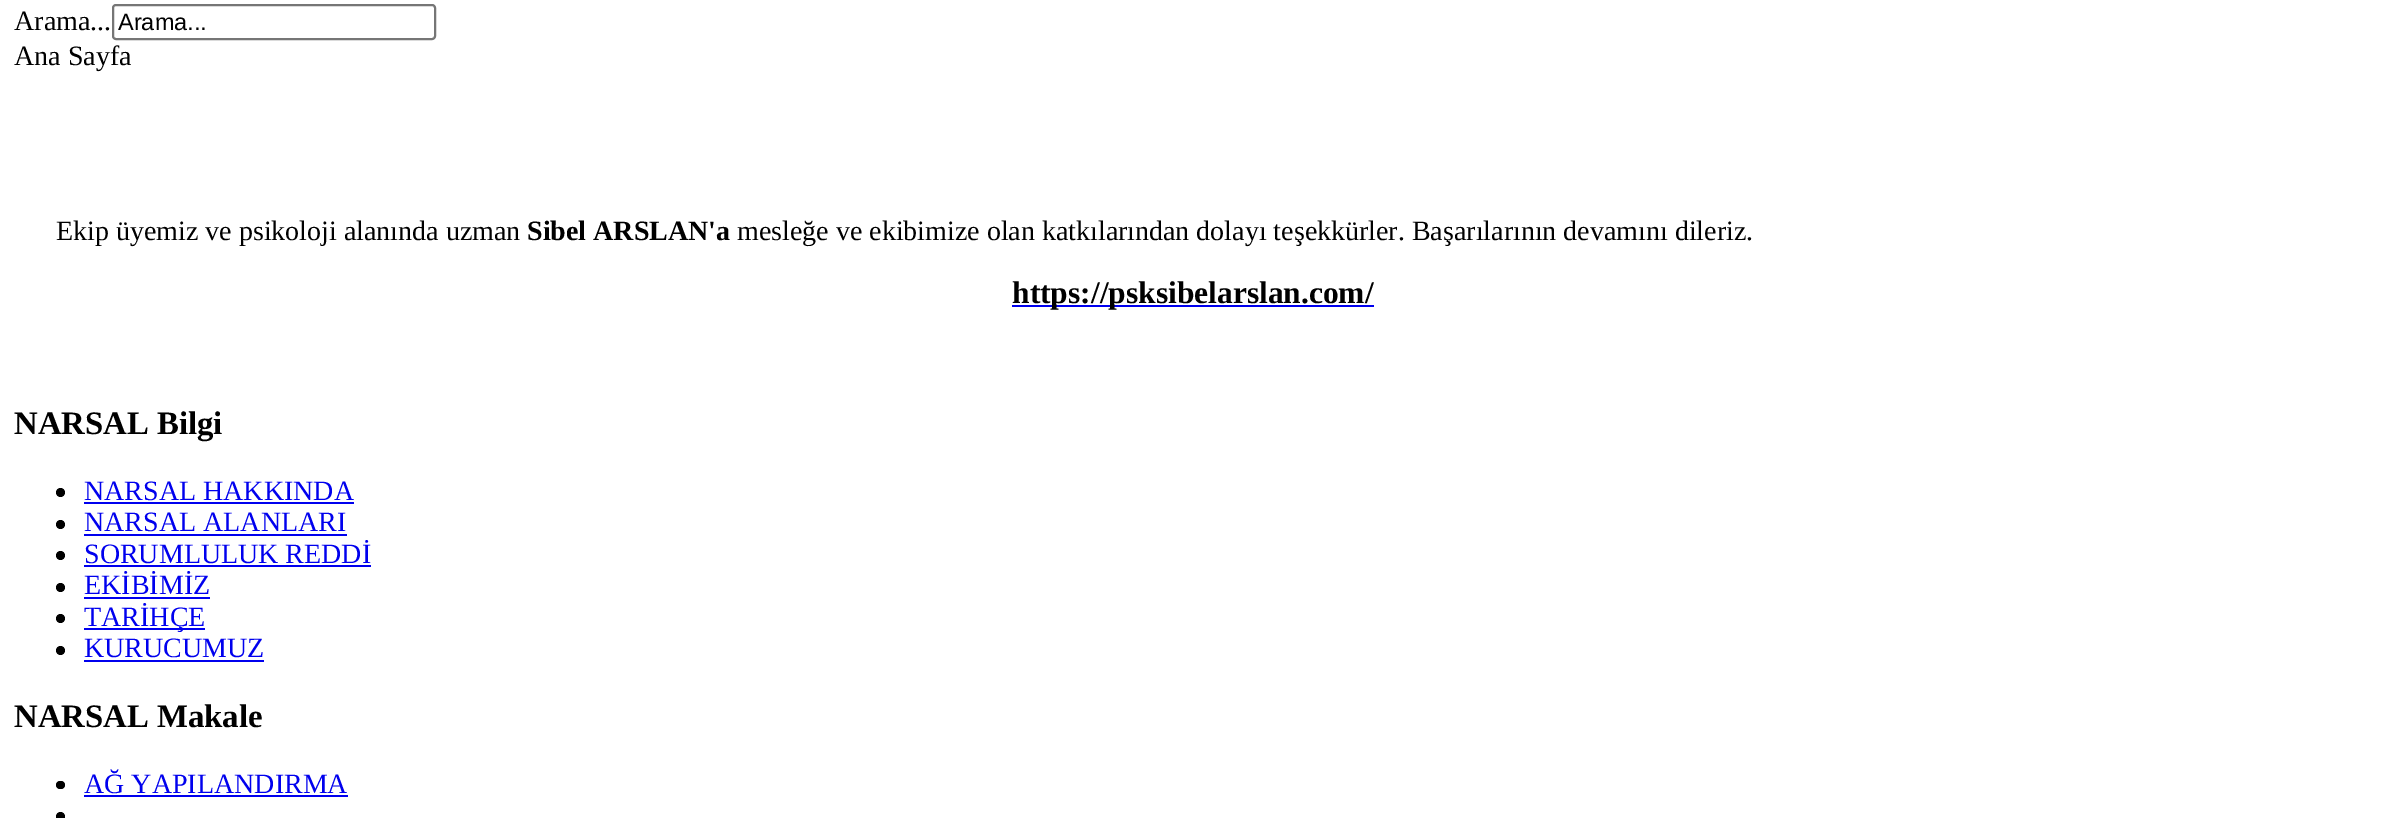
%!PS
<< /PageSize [2385 818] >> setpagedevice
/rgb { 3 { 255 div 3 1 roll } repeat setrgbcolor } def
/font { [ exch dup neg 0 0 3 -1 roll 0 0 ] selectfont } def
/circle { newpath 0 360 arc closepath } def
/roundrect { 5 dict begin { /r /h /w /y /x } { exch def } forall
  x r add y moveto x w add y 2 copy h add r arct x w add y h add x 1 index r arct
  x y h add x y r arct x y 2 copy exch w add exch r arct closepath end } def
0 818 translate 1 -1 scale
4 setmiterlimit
255 255 255 rgb
0 0 2385 818 rectfill
118 118 118 rgb
2 setlinewidth
113 5 322 34 3 roundrect stroke
0 0 238 rgb
1012 305 362 2 rectfill
0 0 0 rgb
60.5 492.5 4.5 circle fill
0 0 238 rgb
84 502 270 2 rectfill
0 0 0 rgb
60.5 524.5 4.5 circle fill
0 0 238 rgb
84 534 263 2 rectfill
0 0 0 rgb
60.5 555.5 4.5 circle fill
0 0 238 rgb
84 565 287 2 rectfill
0 0 0 rgb
60.5 587.5 4.5 circle fill
0 0 238 rgb
84 597 126 2 rectfill
0 0 0 rgb
60.5 618.5 4.5 circle fill
0 0 238 rgb
84 628 121 2 rectfill
0 0 0 rgb
60.5 650.5 4.5 circle fill
0 0 238 rgb
84 660 180 2 rectfill
0 0 0 rgb
56 781 9 8 4 roundrect fill
0 0 238 rgb
84 795 264 2 rectfill
0 0 0 rgb
60.5 816.5 4.5 circle fill
/LiberationSerif-Regular 28 font
14 30 moveto (Arama...) show
/LiberationSans-Regular 23.5 font
118 30 moveto (Arama...) show
/LiberationSerif-Regular 28 font
14 65 moveto (Ana Sayfa) show
56 240 moveto (Ekip üyemiz ve psikoloji alanında uzman) show
/LiberationSerif-Bold 28 font
527 240 moveto (Sibel ARSLAN'a) show
/LiberationSerif-Regular 28 font
737 240 moveto (mesleğe ve ekibimize olan katkılarından dolayı teşekkürler. Başarılarının devamını dileriz.) show
/LiberationSerif-Bold 31.5 font
1012 303 moveto (https://psksibelarslan.com/) show
/LiberationSerif-Bold 32.75 font
14 434 moveto (NARSAL Bilgi) show
/LiberationSerif-Regular 28 font
0 0 238 rgb
[
  [(NARSAL HAKKINDA) 84 500]
  [(NARSAL ALANLARI) 84 531]
  [(SORUMLULUK REDDİ) 84 563]
  [(EKİBİMİZ) 84 594]
  [(TARİHÇE) 84 626]
  [(KURUCUMUZ) 84 657]
] { aload pop moveto show } forall
/LiberationSerif-Bold 32.75 font
0 0 0 rgb
14 727 moveto (NARSAL Makale) show
/LiberationSerif-Regular 28 font
0 0 238 rgb
84 793 moveto (AĞ YAPILANDIRMA) show
showpage
